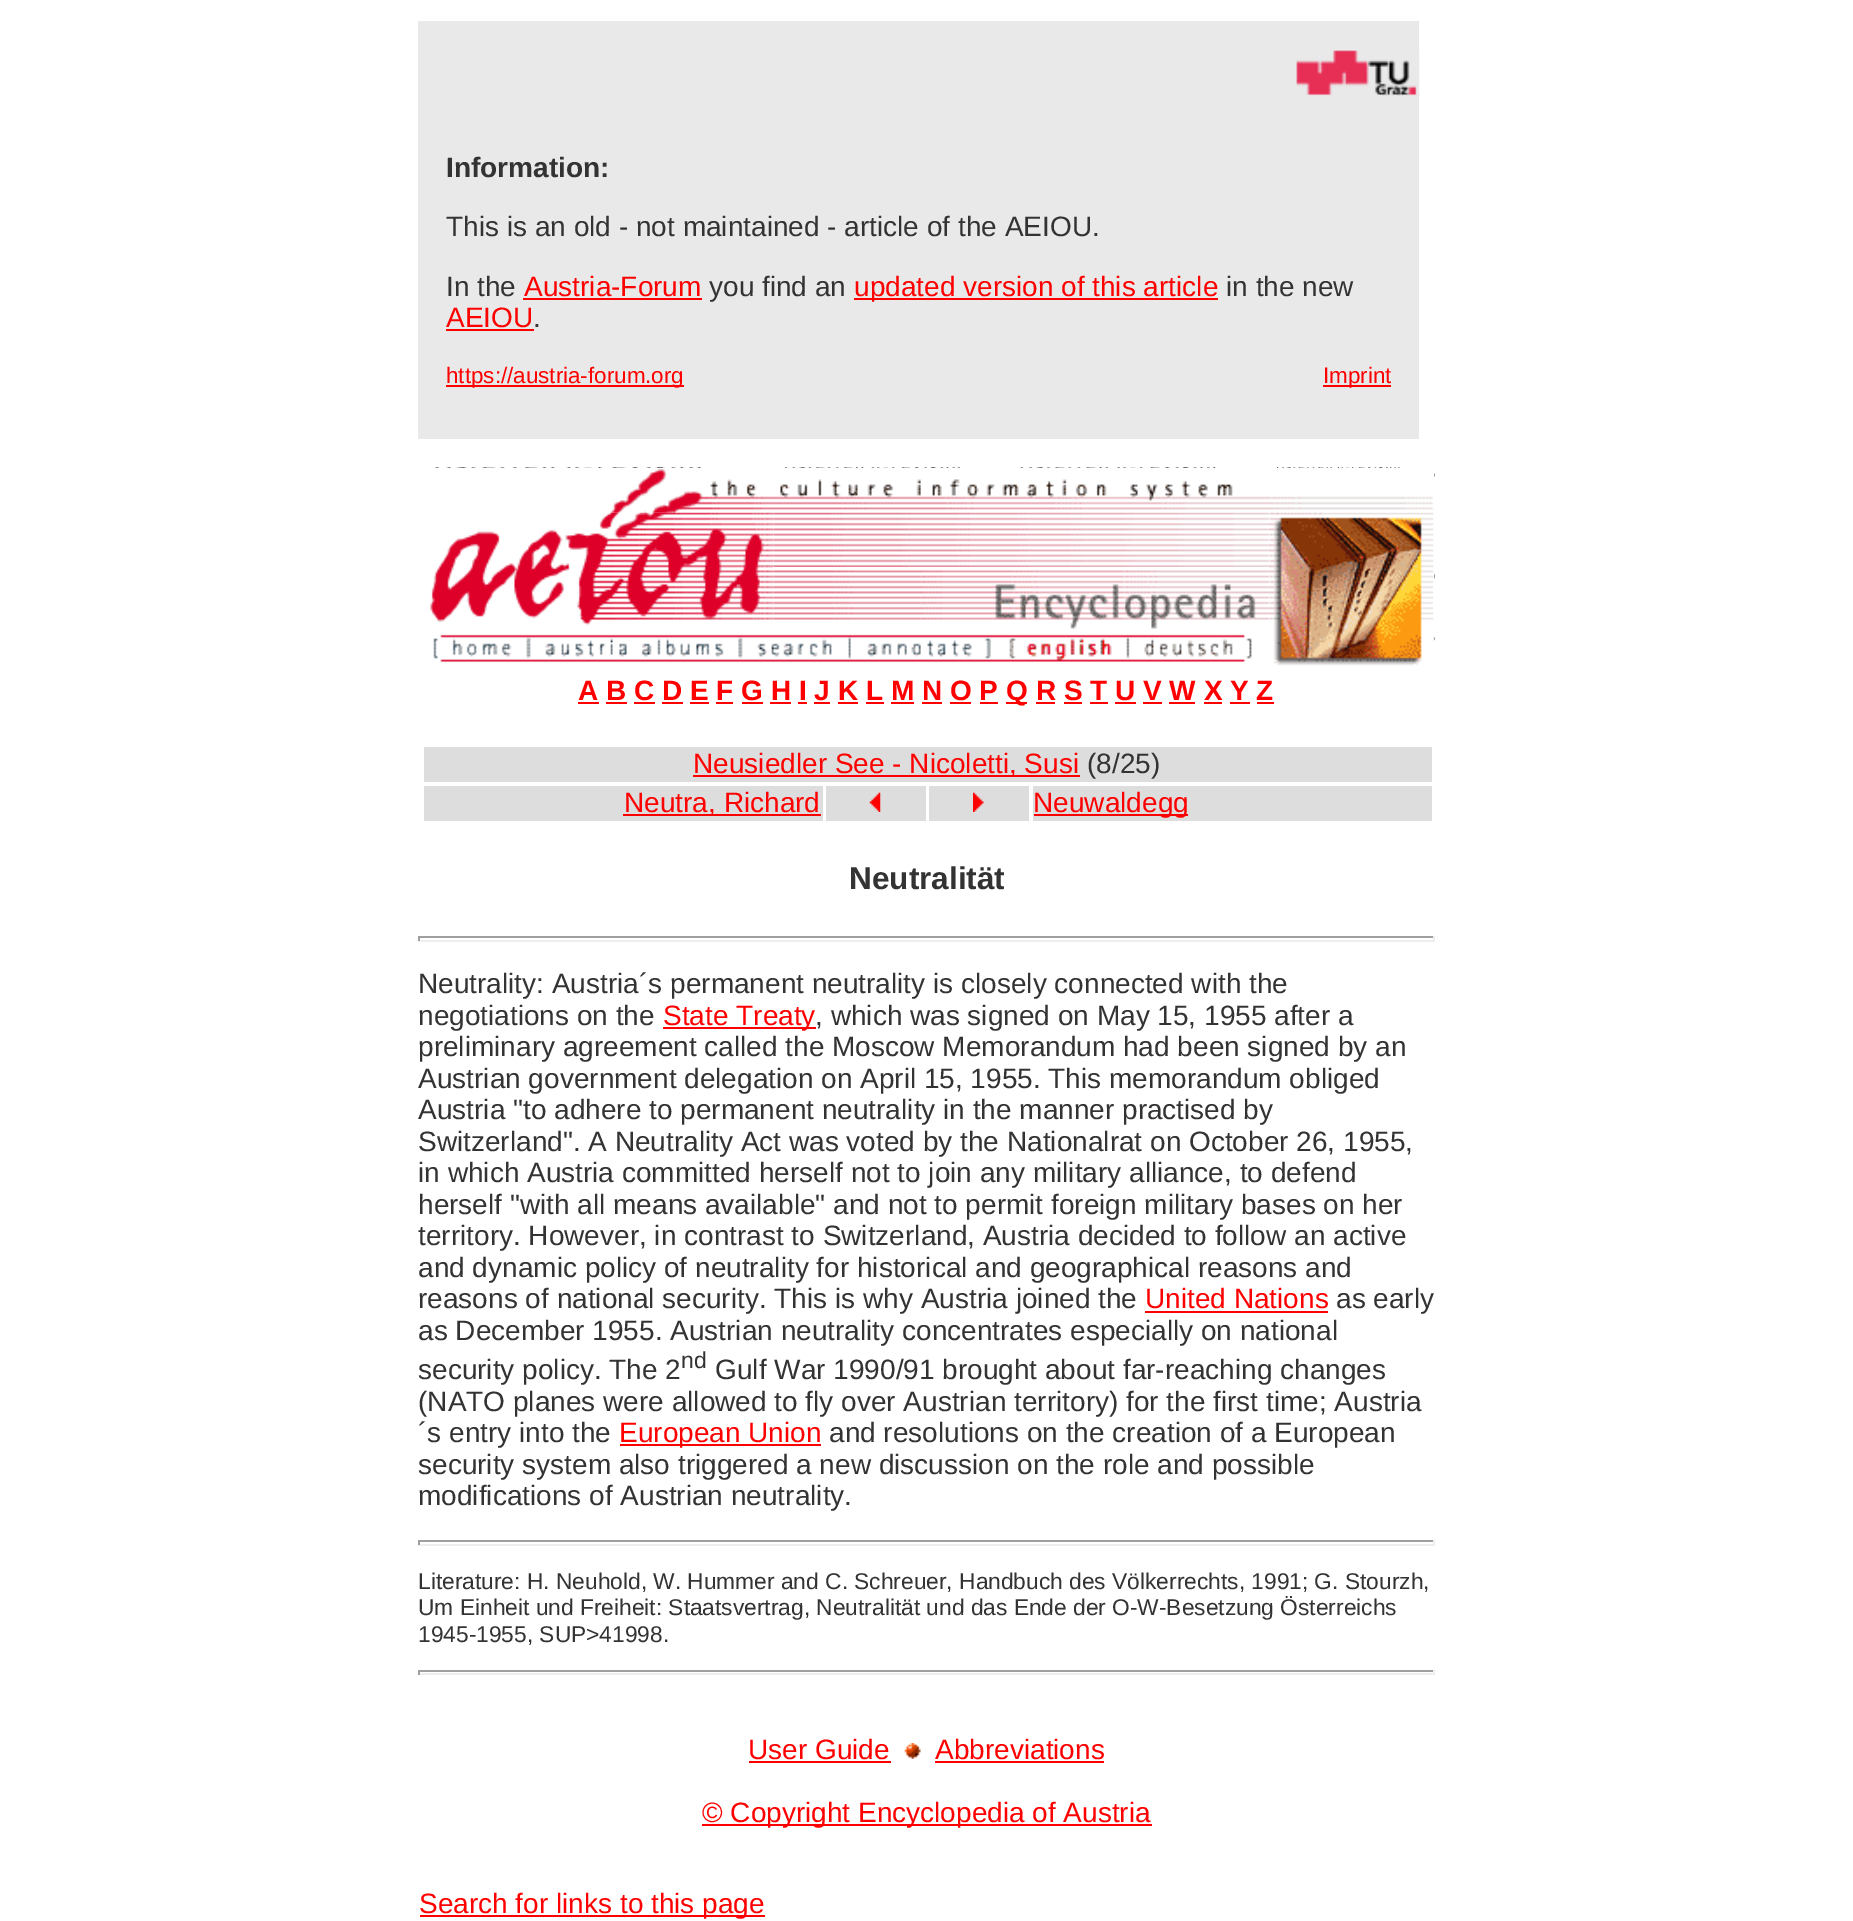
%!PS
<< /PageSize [1853 1921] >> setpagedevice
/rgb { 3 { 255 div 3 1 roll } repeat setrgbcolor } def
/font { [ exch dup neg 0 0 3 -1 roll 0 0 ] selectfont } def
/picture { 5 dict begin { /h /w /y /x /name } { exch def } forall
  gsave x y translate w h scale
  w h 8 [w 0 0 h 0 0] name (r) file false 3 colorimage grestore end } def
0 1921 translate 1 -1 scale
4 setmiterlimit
255 255 255 rgb
0 0 1853 1921 rectfill
233 233 233 rgb
418 21 1001 418 rectfill
(img/1.rgb) 1296 49 124 47 picture
[
  [523 298 179 2 255 0 0]
  [854 298 364 2 255 0 0]
  [446 329 88 2 255 0 0]
  [446 385 238 2 255 0 0]
  [1323 385 68 2 255 0 0]
] { aload pop rgb rectfill } forall
(img/2.rgb) 434 467 267 1 picture
(img/3.rgb) 784 467 176 1 picture
(img/4.rgb) 1019 467 197 1 picture
(img/5.rgb) 1276 467 124 1 picture
(img/6.rgb) 610 469 824 44 picture
(img/7.rgb) 1433 473 2 36 picture
(img/8.rgb) 430 512 344 114 picture
(img/9.rgb) 773 512 496 55 picture
(img/10.rgb) 1268 512 166 154 picture
(img/11.rgb) 773 567 496 62 picture
(img/12.rgb) 1433 571 2 48 picture
(img/13.rgb) 433 634 819 29 picture
(img/14.rgb) 1433 636 2 5 picture
[
  [578 702 21 2 255 0 0]
  [606 702 21 2 255 0 0]
  [634 702 21 2 255 0 0]
  [662 702 21 2 255 0 0]
  [690 702 19 2 255 0 0]
  [716 702 17 2 255 0 0]
  [742 702 21 2 255 0 0]
  [770 702 21 2 255 0 0]
  [798 702 9 2 255 0 0]
  [814 702 16 2 255 0 0]
  [838 702 20 2 255 0 0]
  [866 702 18 2 255 0 0]
  [891 702 23 2 255 0 0]
  [922 702 20 2 255 0 0]
  [950 702 21 2 255 0 0]
  [980 702 18 2 255 0 0]
  [1006 702 21 2 255 0 0]
  [1036 702 19 2 255 0 0]
  [1064 702 18 2 255 0 0]
  [1090 702 18 2 255 0 0]
  [1115 702 21 2 255 0 0]
  [1143 702 19 2 255 0 0]
  [1169 702 26 2 255 0 0]
  [1204 702 18 2 255 0 0]
  [1230 702 20 2 255 0 0]
  [1257 702 17 2 255 0 0]
  [424 747 1008 35 221 221 221]
  [693 775 387 2 255 0 0]
  [424 786 399 35 221 221 221]
  [623 814 198 2 255 0 0]
  [826 786 100 35 221 221 221]
] { aload pop rgb rectfill } forall
(img/15.rgb) 869 792 12 20 picture
929 786 100 35 rectfill
(img/16.rgb) 973 792 11 20 picture
[
  [1033 786 399 35 221 221 221]
  [1034 814 154 2 255 0 0]
  [418 936 1017 2 159 159 159]
  [1433 936 2 5 238 238 238]
  [418 940 1017 2 238 238 238]
  [418 936 2 5 159 159 159]
  [663 1027 153 2 255 0 0]
  [1145 1311 183 2 255 0 0]
  [620 1444 201 2 255 0 0]
  [418 1540 1017 2 159 159 159]
  [1433 1540 2 5 238 238 238]
  [418 1544 1017 2 238 238 238]
  [418 1540 2 5 159 159 159]
  [418 1670 1017 2 159 159 159]
  [1433 1670 2 5 238 238 238]
  [418 1673 1017 2 238 238 238]
  [418 1670 2 5 159 159 159]
  [749 1761 142 2 255 0 0]
] { aload pop rgb rectfill } forall
(img/17.rgb) 904 1743 17 16 picture
[
  [935 1761 169 2 255 0 0]
  [702 1824 450 2 255 0 0]
  [420 1915 345 2 255 0 0]
] { aload pop rgb rectfill } forall
/LiberationSans-Bold 28 font
51 51 51 rgb
446 177 moveto (Information:) show
/LiberationSans-Regular 28 font
446 236 moveto (This is an old - not maintained - article of the AEIOU.) show
446 296 moveto (In the) show
255 0 0 rgb
524 296 moveto (Austria-Forum) show
51 51 51 rgb
709 296 moveto (you find an) show
255 0 0 rgb
854 296 moveto (updated version of this article) show
51 51 51 rgb
1226 296 moveto (in the new) show
255 0 0 rgb
446 327 moveto (AEIOU) show
51 51 51 rgb
533 327 moveto (.) show
/LiberationSans-Regular 22.4 font
255 0 0 rgb
446 383 moveto (https://austria-forum.org) show
1323 383 moveto (Imprint) show
/LiberationSans-Bold 28 font
578 700 moveto (A B C D E F G H I J K L M N O P) show
1006 700 moveto (Q R S T U V W X Y Z) show
/LiberationSans-Regular 28 font
693 773 moveto (Neusiedler See - Nicoletti, Susi) show
51 51 51 rgb
1087 773 moveto (\(8/25\)) show
255 0 0 rgb
624 812 moveto (Neutra, Richard) show
1033 812 moveto (Neuwaldegg) show
/LiberationSans-Bold 31.5 font
51 51 51 rgb
849 889 moveto (Neutralität) show
/LiberationSans-Regular 28 font
418 993 moveto (Neutrality: Austria´s permanent neutrality is closely connected with the) show
418 1025 moveto (negotiations on the) show
255 0 0 rgb
663 1025 moveto (State Treaty) show
51 51 51 rgb
[
  [(, which was signed on May 15, 1955 after a) 815 1025]
  [(preliminary agreement called the Moscow Memorandum had been signed by an) 418 1056]
  [(Austrian government delegation on April 15, 1955. This memorandum obliged) 418 1088]
  [(Austria "to adhere to permanent neutrality in the manner practised by) 418 1119]
  [(Switzerland". A Neutrality Act was voted by the Nationalrat on October 26, 1955,) 418 1151]
  [(in which Austria committed herself not to join any military alliance, to defend) 418 1182]
  [(herself "with all means available" and not to permit foreign military bases on her) 418 1214]
  [(territory. However, in contrast to Switzerland, Austria decided to follow an active) 418 1245]
  [(and dynamic policy of neutrality for historical and geographical reasons and) 418 1277]
  [(reasons of national security. This is why Austria joined the) 418 1308]
] { aload pop moveto show } forall
255 0 0 rgb
1145 1308 moveto (United Nations) show
51 51 51 rgb
[
  [(as early) 1336 1308]
  [(as December 1955. Austrian neutrality concentrates especially on national) 418 1340]
  [(security policy. The 2) 418 1379]
] { aload pop moveto show } forall
/LiberationSans-Regular 23 font
681 1368 moveto (nd) show
/LiberationSans-Regular 28 font
[
  [(Gulf War 1990/91 brought about far-reaching changes) 715 1379]
  [(\(NATO planes were allowed to fly over Austrian territory\) for the first time; Austria) 418 1411]
  [(´s entry into the) 418 1442]
] { aload pop moveto show } forall
255 0 0 rgb
619 1442 moveto (European Union) show
51 51 51 rgb
[
  [(and resolutions on the creation of a European) 829 1442]
  [(security system also triggered a new discussion on the role and possible) 418 1474]
  [(modifications of Austrian neutrality.) 418 1505]
] { aload pop moveto show } forall
/LiberationSans-Regular 22.75 font
[
  [(Literature: H. Neuhold, W. Hummer and C. Schreuer, Handbuch des Völkerrechts, 1991; G. Stourzh,) 418 1589]
  [(Um Einheit und Freiheit: Staatsvertrag, Neutralität und das Ende der O-W-Besetzung Österreichs) 418 1615]
  [(1945-1955, SUP>41998.) 418 1642]
] { aload pop moveto show } forall
/LiberationSans-Regular 28 font
255 0 0 rgb
[
  [(User Guide) 748 1759]
  [(Abbreviations) 935 1759]
  [(© Copyright Encyclopedia of Austria) 702 1822]
  [(Search for links to this page) 419 1913]
] { aload pop moveto show } forall
showpage
